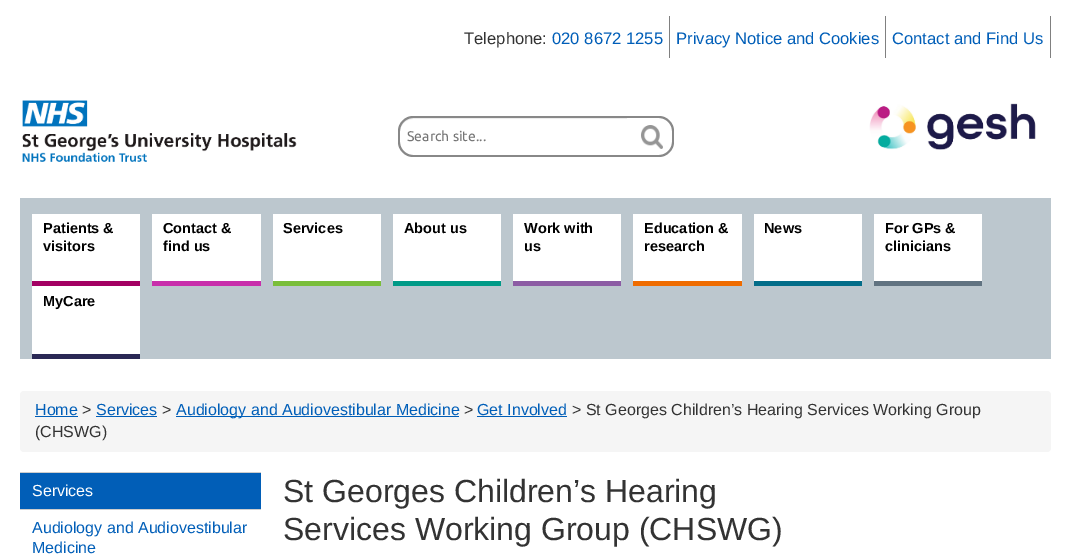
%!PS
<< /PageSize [1071 559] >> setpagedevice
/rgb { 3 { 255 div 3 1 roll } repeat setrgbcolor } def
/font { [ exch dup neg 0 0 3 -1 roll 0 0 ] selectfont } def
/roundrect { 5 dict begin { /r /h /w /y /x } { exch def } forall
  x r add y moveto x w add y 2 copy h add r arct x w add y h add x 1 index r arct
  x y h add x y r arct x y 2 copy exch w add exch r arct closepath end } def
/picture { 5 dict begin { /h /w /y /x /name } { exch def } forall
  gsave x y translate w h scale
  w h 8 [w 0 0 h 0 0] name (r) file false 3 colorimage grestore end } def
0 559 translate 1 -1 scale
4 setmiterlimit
255 255 255 rgb
0 0 1071 559 rectfill
[
  [669 16 1 42 128 128 128]
  [885 16 1 42 128 128 128]
  [1050 16 1 42 128 128 128]
] { aload pop rgb rectfill } forall
(img/1.rgb) 22 100 275 62 picture
136 136 136 rgb
626 116 moveto 659 116 lineto 667 116 674 123 674 131 curveto 674 142 lineto 674 150 667 157 659 157 curveto 626 157 lineto closepath 626 118 moveto 659 118 lineto 666 118 672 124 672 131 curveto 672 142 lineto 672 149 666 155 659 155 curveto 626 155 lineto closepath eofill
255 255 255 rgb
413 116 moveto 627 116 lineto 627 157 lineto 413 157 lineto 404.5 157 398 150.5 398 142 curveto 398 131 lineto 398 122.5 404.5 116 413 116 curveto closepath fill
236 236 236 rgb
413 119 moveto 627 119 lineto 627 118 lineto 413 118 lineto 406 118 400 124 400 131 curveto 400 132 lineto 400 125 406 119 413 119 curveto closepath fill
136 136 136 rgb
413 116 moveto 627 116 lineto 627 157 lineto 413 157 lineto 405 157 398 150 398 142 curveto 398 131 lineto 398 123 405 116 413 116 curveto closepath 413 118 moveto 627 118 lineto 627 155 lineto 413 155 lineto 406 155 400 149 400 142 curveto 400 131 lineto 400 124 406 118 413 118 curveto closepath eofill
(img/2.rgb) 641 125 22 24 picture
(img/3.rgb) 869 103 167 47 picture
[
  [20 198 1031 161 188 199 206]
  [32 214 108 67 255 255 255]
  [32 281 108 5 163 0 99]
  [152 214 109 67 255 255 255]
  [152 281 109 5 200 47 171]
  [273 214 108 67 255 255 255]
  [273 281 108 5 122 190 58]
  [393 214 108 67 255 255 255]
  [393 281 108 5 0 154 135]
  [513 214 108 67 255 255 255]
  [513 281 108 5 140 92 164]
  [633 214 109 67 255 255 255]
  [633 281 109 5 239 108 0]
  [754 214 108 67 255 255 255]
  [754 281 108 5 3 109 137]
  [874 214 108 67 255 255 255]
  [874 281 108 5 97 115 129]
  [32 286 108 68 255 255 255]
  [32 354 108 5 42 40 85]
] { aload pop rgb rectfill } forall
245 245 245 rgb
20 391 1031 61 4 roundrect fill
[
  [35 416 43 1 0 94 184]
  [96 416 61 1 0 94 184]
  [176 416 283 1 0 94 184]
  [477 416 90 1 0 94 184]
  [20 473 241 36 1 94 183]
  [20 472 241 1 205 205 205]
  [20 509 241 1 205 205 205]
] { aload pop rgb rectfill } forall
/LiberationSans-Regular 16.6 font
51 51 51 rgb
464 44 moveto (Telephone:) show
0 94 184 rgb
[
  [(020 8672 1255) 552 44]
  [(Privacy Notice and Cookies) 676 44]
  [(Contact and Find Us) 892 44]
] { aload pop moveto show } forall
/Ubuntu-Regular 14 font
117 117 117 rgb
407 141 moveto (Search site...) show
/LiberationSans-Bold 14.5 font
0 0 0 rgb
[
  [(Patients &) 43 233]
  [(visitors) 43 251]
  [(Contact &) 163 233]
  [(find us) 163 251]
  [(Services) 283 233]
  [(About us) 404 233]
  [(Work with) 524 233]
  [(us) 524 251]
  [(Education &) 644 233]
  [(research) 644 251]
  [(News) 764 233]
  [(For GPs &) 885 233]
  [(clinicians) 885 251]
  [(MyCare) 43 306]
] { aload pop moveto show } forall
/LiberationSans-Regular 16 font
0 94 184 rgb
35 415 moveto (Home) show
51 51 51 rgb
82 415 moveto (>) show
0 94 184 rgb
96 415 moveto (Services) show
51 51 51 rgb
162 415 moveto (>) show
0 94 184 rgb
176 415 moveto (Audiology and Audiovestibular Medicine) show
51 51 51 rgb
464 415 moveto (>) show
0 94 184 rgb
477 415 moveto (Get Involved) show
51 51 51 rgb
572 415 moveto (> St Georges Children’s Hearing Services Working Group) show
35 437 moveto (\(CHSWG\)) show
255 255 255 rgb
32 496 moveto (Services) show
0 94 184 rgb
32 533 moveto (Audiology and Audiovestibular) show
32 553 moveto (Medicine) show
/LiberationSans-Regular 32 font
51 51 51 rgb
283 502 moveto (St Georges Children’s Hearing) show
283 540 moveto (Services Working Group \(CHSWG\)) show
showpage
